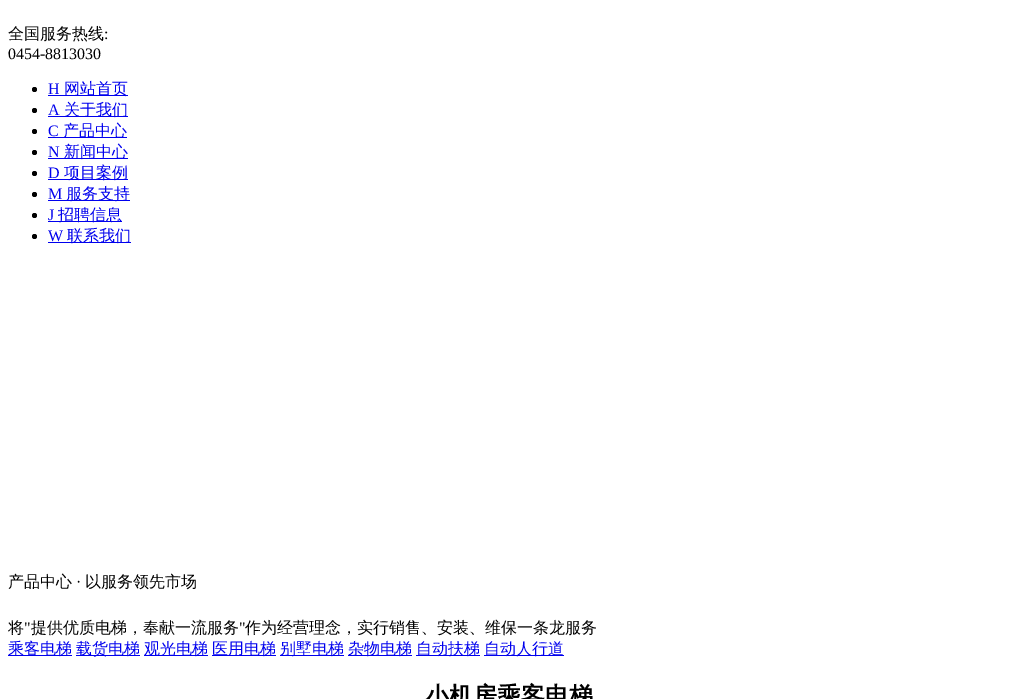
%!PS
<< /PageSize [1018 699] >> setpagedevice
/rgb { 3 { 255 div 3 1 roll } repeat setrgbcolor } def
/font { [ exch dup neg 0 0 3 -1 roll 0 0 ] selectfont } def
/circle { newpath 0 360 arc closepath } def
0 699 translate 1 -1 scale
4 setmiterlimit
255 255 255 rgb
0 0 1018 699 rectfill
0 0 0 rgb
34.5 89.5 2.5 circle fill
0 0 238 rgb
48 95 80 1 rectfill
0 0 0 rgb
34.5 110.5 2.5 circle fill
0 0 238 rgb
48 116 80 1 rectfill
0 0 0 rgb
34.5 131.5 2.5 circle fill
0 0 238 rgb
48 137 79 1 rectfill
0 0 0 rgb
34.5 152.5 2.5 circle fill
0 0 238 rgb
48 158 80 1 rectfill
0 0 0 rgb
34.5 173.5 2.5 circle fill
0 0 238 rgb
48 179 80 1 rectfill
0 0 0 rgb
34.5 194.5 2.5 circle fill
0 0 238 rgb
48 200 82 1 rectfill
0 0 0 rgb
34.5 215.5 2.5 circle fill
0 0 238 rgb
48 221 74 1 rectfill
0 0 0 rgb
34.5 236.5 2.5 circle fill
[
  [48 242 83 1 0 0 238]
  [8 655 64 1 0 0 238]
  [76 655 64 1 0 0 238]
  [144 655 64 1 0 0 238]
  [212 655 64 1 0 0 238]
  [280 655 64 1 0 0 238]
  [348 655 64 1 0 0 238]
  [416 655 64 1 0 0 238]
  [484 655 80 1 0 0 238]
] { aload pop rgb rectfill } forall
/WenQuanYiZenHei-Medium 16 font
0 0 0 rgb
8 39 moveto (全国服务热线) show
/LiberationSerif-Regular 16 font
104 39 moveto (:) show
8 59 moveto (0454-8813030) show
0 0 238 rgb
48 94 moveto (H) show
/WenQuanYiZenHei-Medium 16 font
64 94 moveto (网站首页) show
/LiberationSerif-Regular 16 font
48 115 moveto (A) show
/WenQuanYiZenHei-Medium 16 font
64 115 moveto (关于我们) show
/LiberationSerif-Regular 16 font
48 136 moveto (C) show
/WenQuanYiZenHei-Medium 16 font
63 136 moveto (产品中心) show
/LiberationSerif-Regular 16 font
48 157 moveto (N) show
/WenQuanYiZenHei-Medium 16 font
64 157 moveto (新闻中心) show
/LiberationSerif-Regular 16 font
48 178 moveto (D) show
/WenQuanYiZenHei-Medium 16 font
64 178 moveto (项目案例) show
/LiberationSerif-Regular 16 font
48 199 moveto (M) show
/WenQuanYiZenHei-Medium 16 font
66 199 moveto (服务支持) show
/LiberationSerif-Regular 16 font
48 220 moveto (J) show
/WenQuanYiZenHei-Medium 16 font
58 220 moveto (招聘信息) show
/LiberationSerif-Regular 16 font
48 241 moveto (W) show
/WenQuanYiZenHei-Medium 16 font
67 241 moveto (联系我们) show
0 0 0 rgb
8 587 moveto (产品中心) show
/LiberationSerif-Regular 16 font
76 587 moveto (·) show
/WenQuanYiZenHei-Medium 16 font
85 587 moveto (以服务领先市场) show
8 633 moveto (将) show
/LiberationSerif-Regular 16 font
24 633 moveto (") show
/WenQuanYiZenHei-Medium 16 font
31 633 moveto (提供优质电梯，奉献一流服务) show
/LiberationSerif-Regular 16 font
239 633 moveto (") show
/WenQuanYiZenHei-Medium 16 font
245 633 moveto (作为经营理念，实行销售、安装、维保一条龙服务) show
0 0 238 rgb
[
  [(乘客电梯) 8 654]
  [(载货电梯) 76 654]
  [(观光电梯) 144 654]
  [(医用电梯) 212 654]
  [(别墅电梯) 280 654]
  [(杂物电梯) 348 654]
  [(自动扶梯) 416 654]
  [(自动人行道) 484 654]
] { aload pop moveto show } forall
/WenQuanYiZenHei-Bold 24 font
0 0 0 rgb
425 704 moveto (小机房乘客电梯) show
showpage
